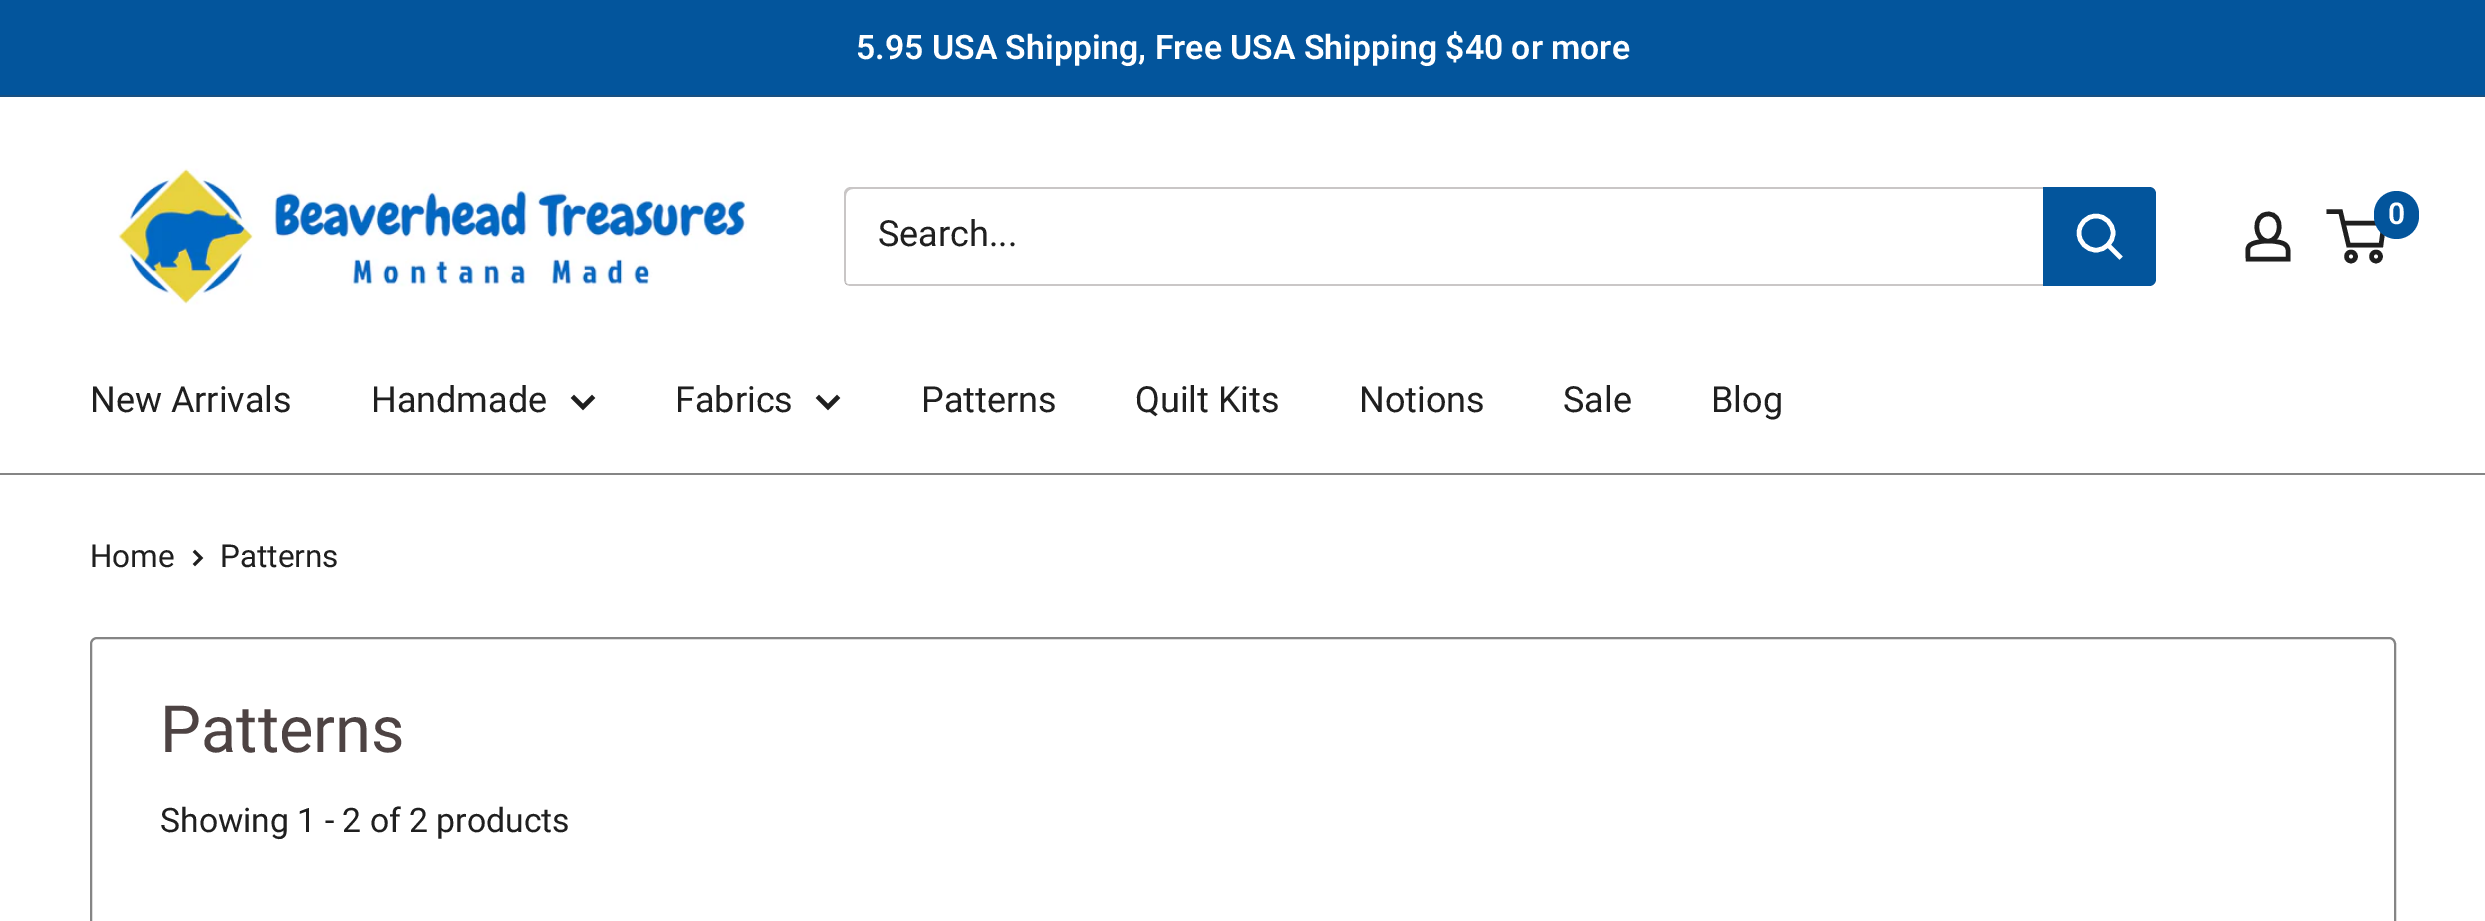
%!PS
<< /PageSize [2485 921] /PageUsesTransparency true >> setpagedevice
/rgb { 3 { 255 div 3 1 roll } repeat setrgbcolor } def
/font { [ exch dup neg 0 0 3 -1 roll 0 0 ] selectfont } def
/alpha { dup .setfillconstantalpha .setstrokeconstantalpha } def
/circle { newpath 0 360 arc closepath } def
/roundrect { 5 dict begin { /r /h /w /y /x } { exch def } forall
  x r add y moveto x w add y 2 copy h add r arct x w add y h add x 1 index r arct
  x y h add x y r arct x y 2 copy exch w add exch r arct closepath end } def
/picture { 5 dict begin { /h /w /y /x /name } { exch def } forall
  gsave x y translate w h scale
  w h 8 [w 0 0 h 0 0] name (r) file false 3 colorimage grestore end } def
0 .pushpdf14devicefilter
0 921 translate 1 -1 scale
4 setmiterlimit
255 255 255 rgb
0 0 2485 921 rectfill
3 85 156 rgb
0 0 2485 95 rectfill
25 80 129 rgb
0 95 2485 2 rectfill
(img/1.rgb) 118 168 629 137 picture
31 31 31 rgb
4.5 setlinewidth
2268 241 moveto 2272 241 2276.5 241.5 2280.5 242.5 curveto 2290 245 2288 250.5 2288 259 curveto 2248 259 lineto 2248 249.5 2245.5 245 2256 242.5 curveto 2260 241.5 2264 241 2268 241 curveto closepath 2268 241 moveto 2254 241 2252 214 2268 214 curveto 2284 213.5 2282 241 2268 241 curveto closepath stroke
2351 256.5 4.5 circle stroke
2376 256.5 4.5 circle stroke
2343 223 moveto 2384 223 lineto 2381 245 lineto 2348.5 245 lineto 2340.5 211.5 lineto 2326.5 211.5 lineto stroke
3 85 156 rgb
2374 191 45 48 22.5 roundrect fill
202 199 199 rgb
845 283 moveto 846 285 849 286 851 286 curveto 2149 286 lineto 2153 286 2156 283 2156 279 curveto 2156 194 lineto 2156 191 2154 189 2152 188 curveto 2153 191 lineto 2153 277 lineto 2153 280 2150 284 2146 284 curveto 848 284 lineto closepath fill
0.3 alpha
77 67 67 rgb
853 189 moveto 2151 189 lineto 2155 190 lineto 2154 188 2151 187 2149 187 curveto 851 187 lineto 847 187 844 190 844 194 curveto 844 279 lineto 844 281 845 284 847 285 curveto 846 284 846 282 846 281 curveto 846 196 lineto 846 192 849 189 853 189 curveto closepath fill
1 alpha
3 85 156 rgb
2043 187 moveto 2149 187 lineto 2153 187 2156 190 2156 194 curveto 2156 279 lineto 2156 283 2153 286 2149 286 curveto 2043 286 lineto closepath fill
255 255 255 rgb
2 setlinecap
2119.5 256.5 moveto 2108 245 lineto stroke
0 setlinecap
2096 233 17 circle stroke
133 133 133 rgb
0 473 2485 2 rectfill
31 31 31 rgb
2 setlinecap
592 398 moveto 583 407 lineto 574 398 lineto stroke
837 398 moveto 828 407 lineto 819 398 lineto stroke
3 setlinewidth
195 552 moveto 201 558 lineto 195 564 lineto stroke
133 133 133 rgb
2 setlinewidth
0 setlinecap
91 638 2304 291 6 roundrect stroke
/Roboto-SemiBold 33.75 font
255 255 255 rgb
856 59 moveto (5.95 USA Shipping, Free USA Shipping $40 or more) show
/Roboto-SemiBold 30 font
2388 224 moveto (0) show
/Roboto-Regular 36 font
31 31 31 rgb
[
  [(Search...) 878 246]
  [(New Arrivals) 90 412]
  [(Handmade) 371 412]
  [(Fabrics) 675 412]
  [(Patterns) 921 412]
  [(Quilt Kits) 1135 412]
  [(Notions) 1359 412]
  [(Sale) 1563 412]
  [(Blog) 1711 412]
] { aload pop moveto show } forall
/Roboto-Regular 31.5 font
90 567 moveto (Home) show
220 567 moveto (Patterns) show
/Roboto-Regular 65 font
77 67 67 rgb
160 752 moveto (Patterns) show
/Roboto-Regular 33.75 font
31 31 31 rgb
160 832 moveto (Showing 1 - 2 of 2 products) show
.poppdf14devicefilter showpage
